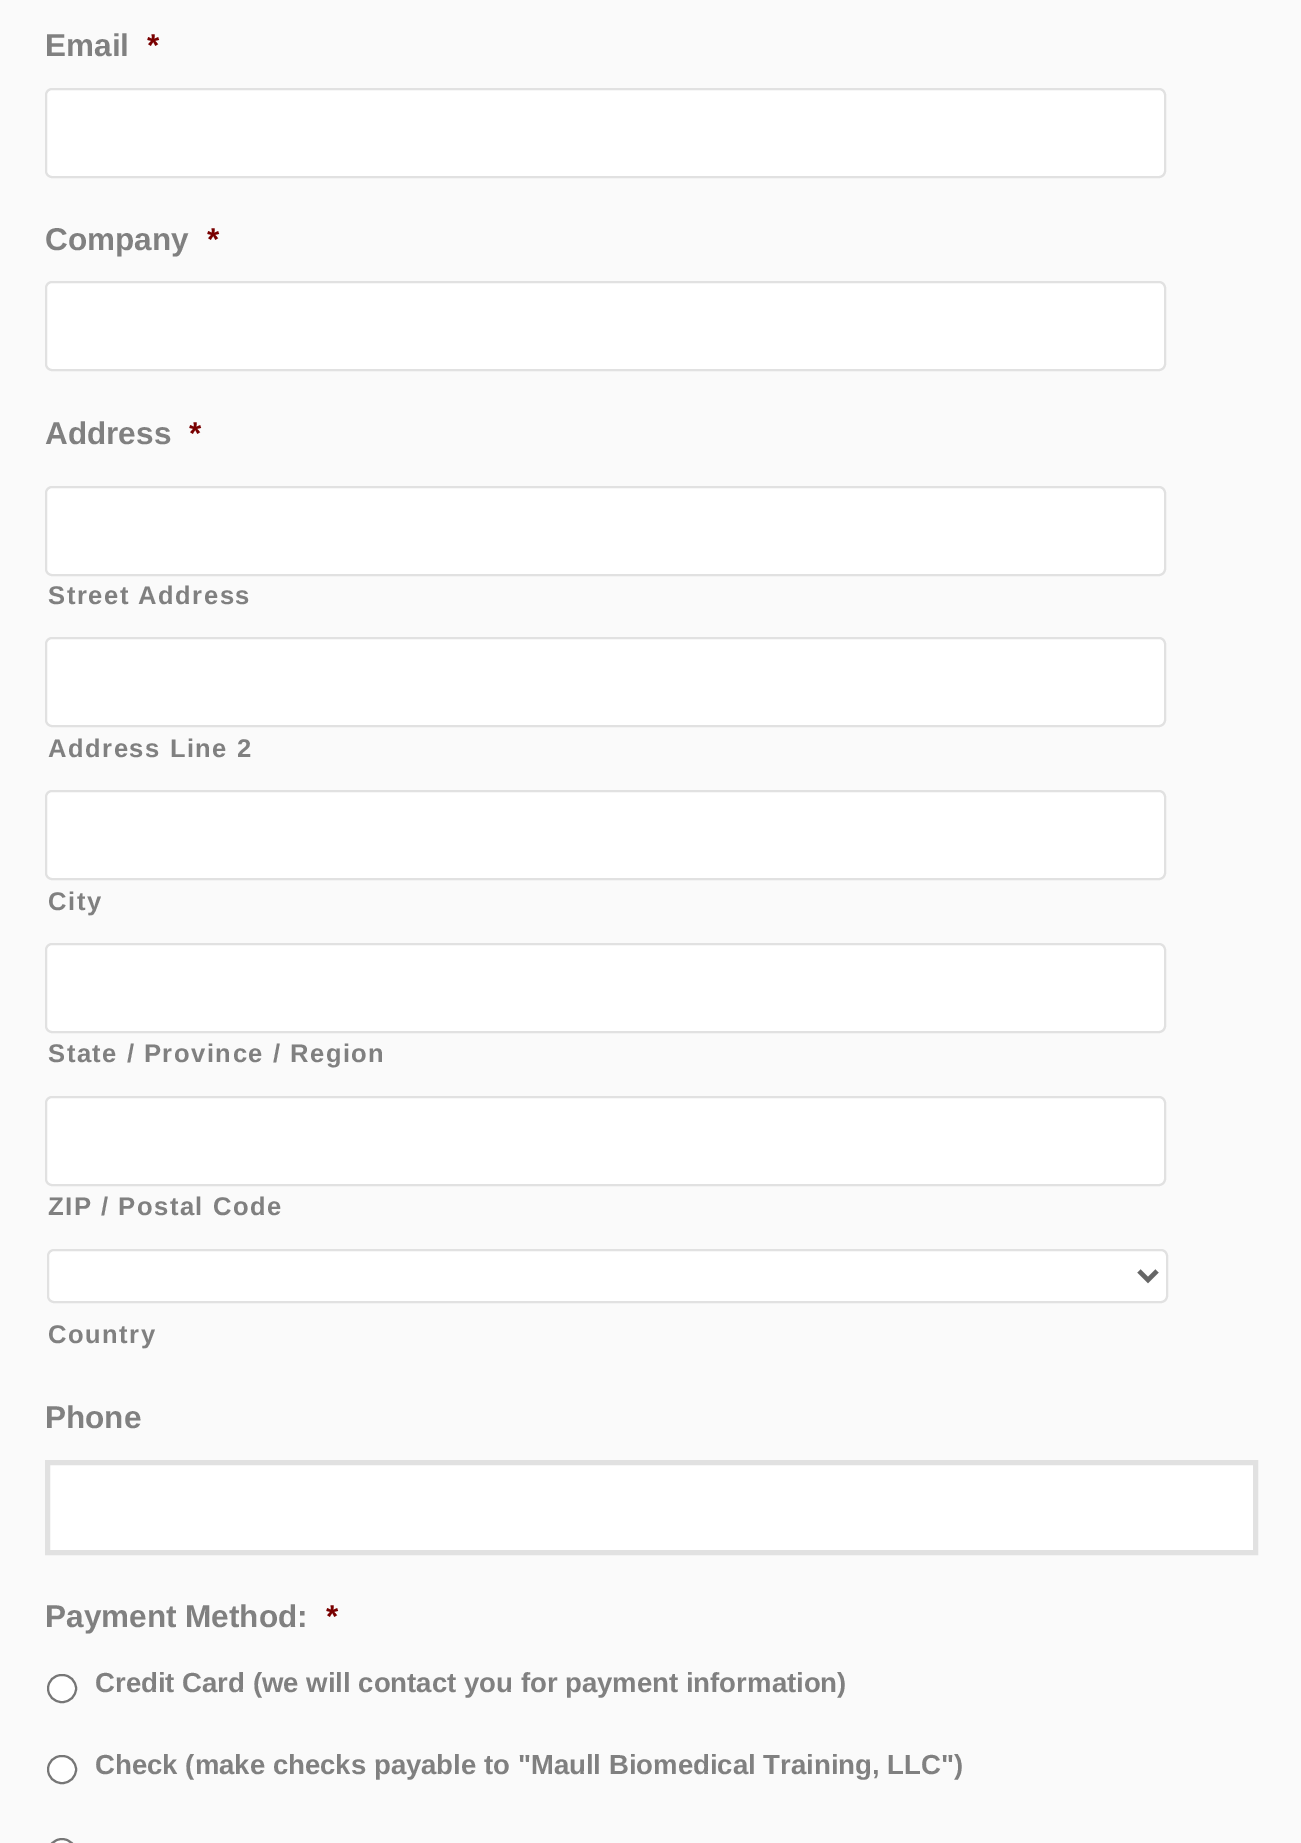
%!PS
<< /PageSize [1301 1843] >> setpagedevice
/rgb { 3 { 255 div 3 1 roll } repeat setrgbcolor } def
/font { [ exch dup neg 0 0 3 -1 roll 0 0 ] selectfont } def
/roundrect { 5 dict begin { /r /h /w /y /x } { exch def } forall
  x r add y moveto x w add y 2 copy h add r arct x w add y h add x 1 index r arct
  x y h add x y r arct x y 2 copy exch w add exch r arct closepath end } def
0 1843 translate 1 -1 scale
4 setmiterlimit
250 250 250 rgb
0 0 1301 1843 rectfill
255 255 255 rgb
46 89 1119 88 6 roundrect gsave fill grestore
225 225 225 rgb
2 setlinewidth
stroke
255 255 255 rgb
46 282 1119 88 6 roundrect gsave fill grestore
225 225 225 rgb
stroke
255 255 255 rgb
46 487 1119 88 6 roundrect gsave fill grestore
225 225 225 rgb
stroke
255 255 255 rgb
46 638 1119 88 6 roundrect gsave fill grestore
225 225 225 rgb
stroke
255 255 255 rgb
46 791 1119 88 6 roundrect gsave fill grestore
225 225 225 rgb
stroke
255 255 255 rgb
46 944 1119 88 6 roundrect gsave fill grestore
225 225 225 rgb
stroke
255 255 255 rgb
46 1097 1119 88 6 roundrect gsave fill grestore
225 225 225 rgb
stroke
255 255 255 rgb
48 1250 1119 52 6 roundrect gsave fill grestore
225 225 225 rgb
stroke
102 102 102 rgb
4.5 setlinewidth
1139 1271 moveto 1148 1280 lineto 1157 1271 lineto stroke
255 255 255 rgb
47.5 1462.5 moveto 1255.5 1462.5 lineto 1255.5 1552.5 lineto 47.5 1552.5 lineto closepath gsave fill grestore
225 225 225 rgb
5 setlinewidth
stroke
255 255 255 rgb
48 1675 28 27 13.5 roundrect gsave fill grestore
118 118 118 rgb
2 setlinewidth
stroke
255 255 255 rgb
48 1756 28 27 13.5 roundrect gsave fill grestore
118 118 118 rgb
stroke
255 255 255 rgb
48 1839 28 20 14 roundrect gsave fill grestore
118 118 118 rgb
stroke
/LiberationSans-Bold 31.5 font
128 128 128 rgb
45 56 moveto (Email) show
121 0 0 rgb
147 56 moveto (*) show
128 128 128 rgb
45 250 moveto (Company) show
121 0 0 rgb
207 250 moveto (*) show
128 128 128 rgb
45 444 moveto (Address) show
121 0 0 rgb
189 444 moveto (*) show
/LiberationSans-Bold 25.6 font
128 128 128 rgb
48 604 moveto 1.5 0 (Street Address) ashow
48 757 moveto 1.5 0 (Address Line 2) ashow
48 910 moveto 1.5 0 (City) ashow
48 1062 moveto 1.5 0 (State / Province / Region) ashow
48 1215 moveto 1.5 0 (ZIP / Postal Code) ashow
48 1343 moveto 1.5 0 (Country) ashow
/LiberationSans-Bold 31.5 font
45 1428 moveto (Phone) show
45 1627 moveto (Payment Method:) show
121 0 0 rgb
326 1627 moveto (*) show
/LiberationSans-Bold 27.55 font
128 128 128 rgb
95 1692 moveto (Credit Card \(we will contact you for payment information\)) show
95 1774 moveto (Check \(make checks payable to "Maull Biomedical Training, LLC"\)) show
showpage
